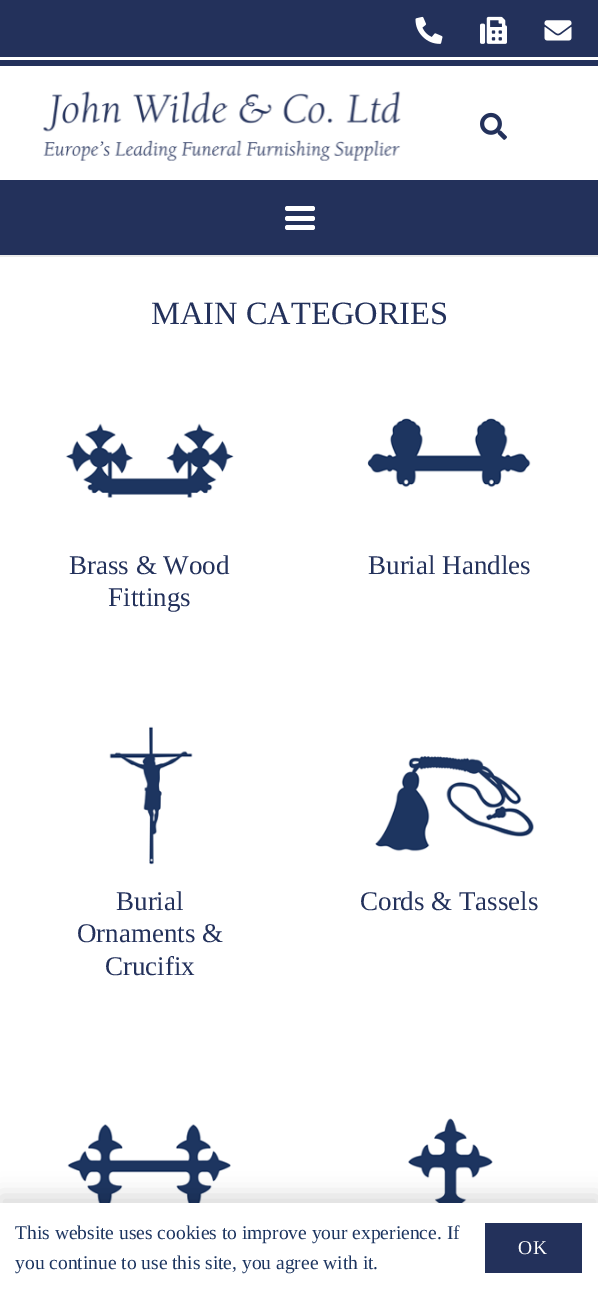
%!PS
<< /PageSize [598 1292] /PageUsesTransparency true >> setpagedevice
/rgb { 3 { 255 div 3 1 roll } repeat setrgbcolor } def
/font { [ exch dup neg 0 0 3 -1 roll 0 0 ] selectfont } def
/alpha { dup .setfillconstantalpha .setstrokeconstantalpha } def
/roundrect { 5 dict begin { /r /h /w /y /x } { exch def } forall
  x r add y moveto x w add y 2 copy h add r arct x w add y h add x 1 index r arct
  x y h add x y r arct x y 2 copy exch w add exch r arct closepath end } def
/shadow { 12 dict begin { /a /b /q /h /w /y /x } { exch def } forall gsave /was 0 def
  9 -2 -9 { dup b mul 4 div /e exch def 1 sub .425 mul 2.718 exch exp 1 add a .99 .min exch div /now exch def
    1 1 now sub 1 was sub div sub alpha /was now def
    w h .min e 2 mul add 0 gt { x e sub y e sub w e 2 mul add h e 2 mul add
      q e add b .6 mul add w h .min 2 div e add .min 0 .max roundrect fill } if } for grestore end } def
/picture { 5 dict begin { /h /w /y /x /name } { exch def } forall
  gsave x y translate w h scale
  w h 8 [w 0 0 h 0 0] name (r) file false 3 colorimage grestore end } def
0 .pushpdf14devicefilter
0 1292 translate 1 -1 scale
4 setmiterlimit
255 255 255 rgb
0 0 598 1292 rectfill
35 49 91 rgb
0 0 598 57 rectfill
(img/1.rgb) 415 16 28 28 picture
(img/2.rgb) 480 16 27 28 picture
(img/3.rgb) 544 20 28 21 picture
0 60 598 6 rectfill
(img/4.rgb) 43 91 358 70 picture
(img/5.rgb) 480 112 27 28 picture
235 235 235 rgb
0 255 moveto 0 257 lineto 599 257 lineto 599 182 lineto 598 182 lineto 598 255 lineto closepath fill
35 49 91 rgb
0 180 598 75 rectfill
255 255 255 rgb
285 216 30 5 2.5 roundrect fill
285 206 30 5 2.5 roundrect fill
285 225 30 5 2.5 roundrect fill
(img/6.rgb) 65 423 169 75 picture
(img/7.rgb) 367 418 164 70 picture
(img/8.rgb) 109 726 84 139 picture
(img/9.rgb) 375 756 159 96 picture
(img/10.rgb) 67 1124 164 79 picture
(img/11.rgb) 408 1118 85 85 picture
0 0 0 rgb
0 1196 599 90 0 11 0.15 shadow
255 255 255 rgb
0 1203 598 89 rectfill
35 49 91 rgb
485 1223 97 50 rectfill
/LiberationSerif-Regular 32.5 font
151 324 moveto (MAIN CATEGORIES) show
/LiberationSerif-Regular 27 font
[
  [(Brass & Wood) 69 574]
  [(Fittings) 108 606]
  [(Burial Handles) 368 574]
  [(Burial) 116 910]
  [(Ornaments &) 77 942]
  [(Crucifix) 105 975]
  [(Cords & Tassels) 360 910]
] { aload pop moveto show } forall
/LiberationSerif-Regular 19.5 font
29 53 96 rgb
15 1239 moveto (This website uses cookies to improve your experience. If) show
15 1269 moveto (you continue to use this site, you agree with it.) show
255 255 255 rgb
518 1254 moveto 1 0 (OK) ashow
.poppdf14devicefilter showpage
